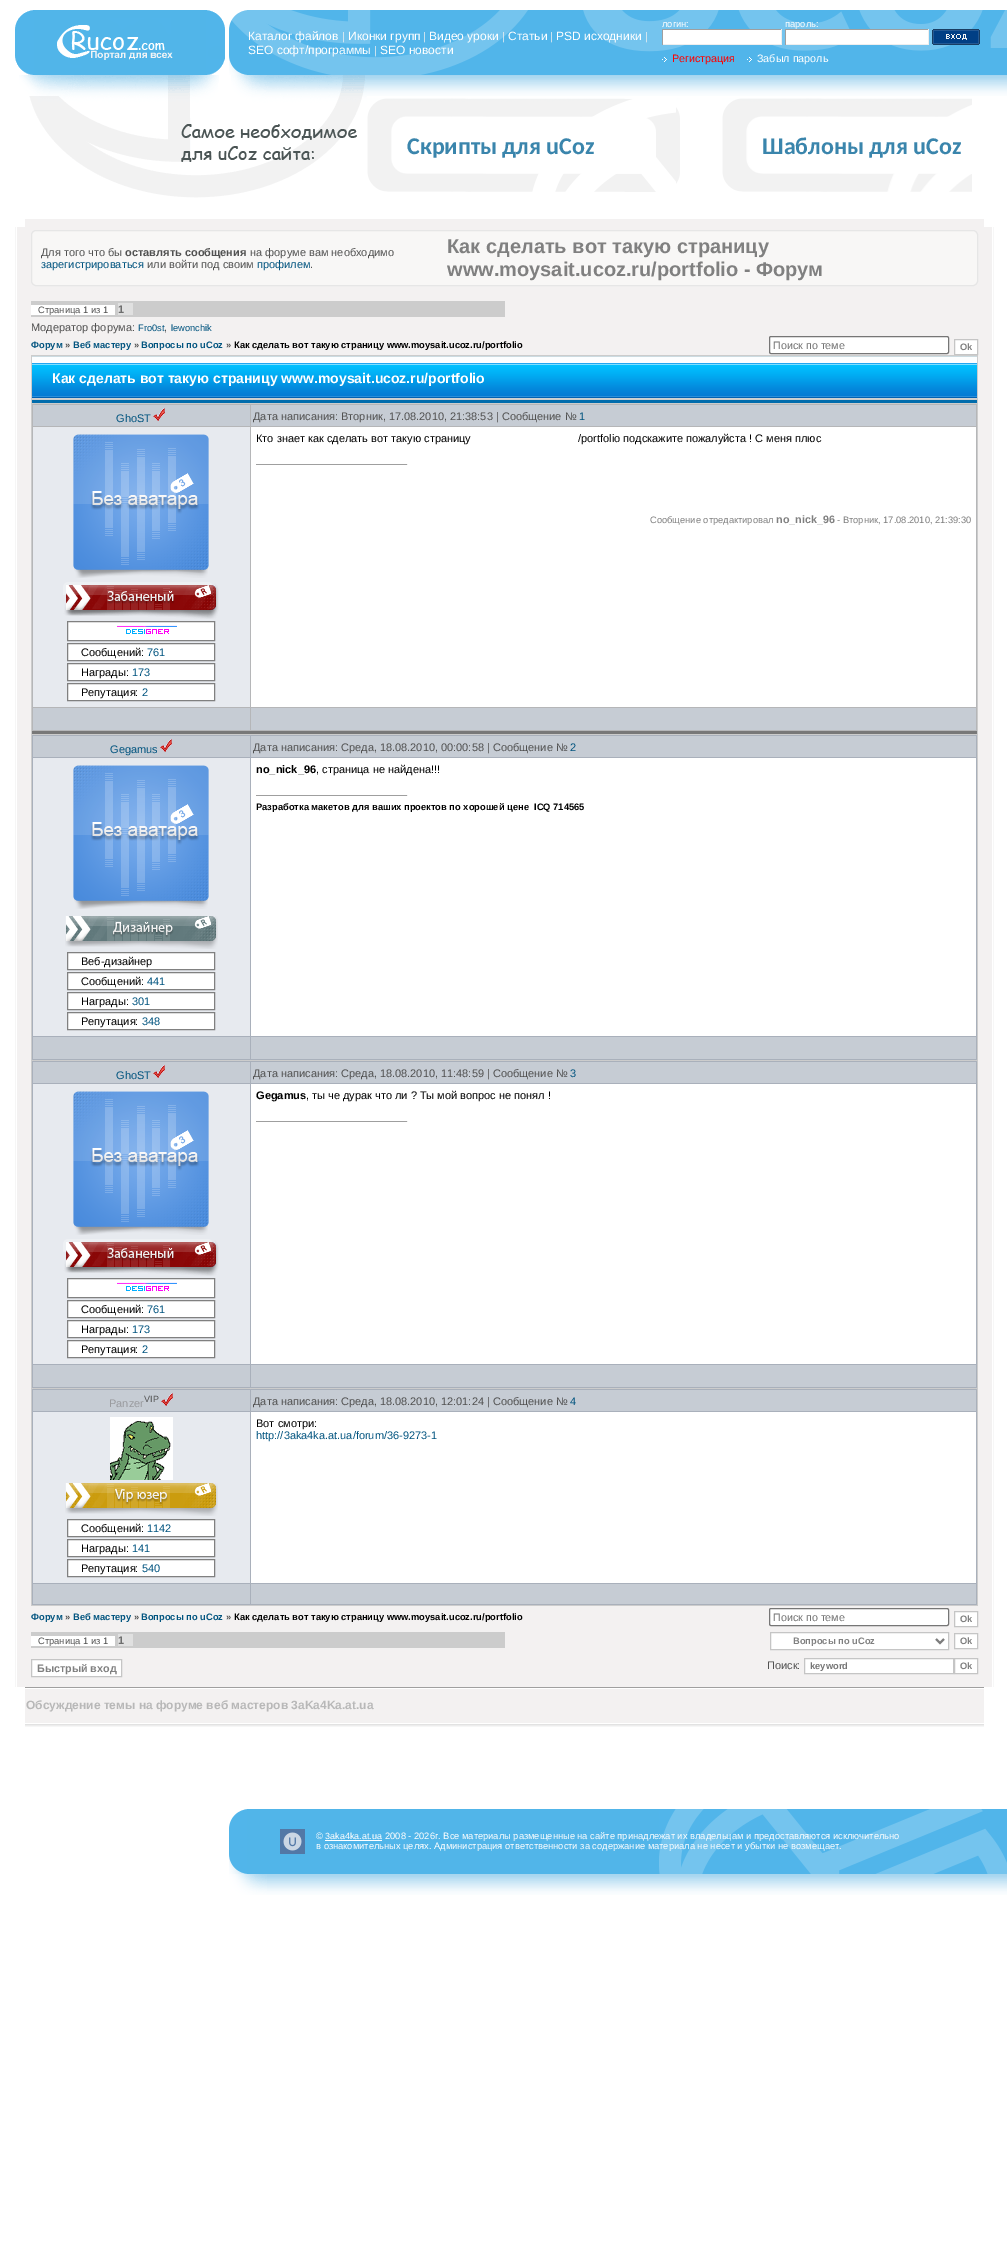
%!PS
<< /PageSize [1007 2243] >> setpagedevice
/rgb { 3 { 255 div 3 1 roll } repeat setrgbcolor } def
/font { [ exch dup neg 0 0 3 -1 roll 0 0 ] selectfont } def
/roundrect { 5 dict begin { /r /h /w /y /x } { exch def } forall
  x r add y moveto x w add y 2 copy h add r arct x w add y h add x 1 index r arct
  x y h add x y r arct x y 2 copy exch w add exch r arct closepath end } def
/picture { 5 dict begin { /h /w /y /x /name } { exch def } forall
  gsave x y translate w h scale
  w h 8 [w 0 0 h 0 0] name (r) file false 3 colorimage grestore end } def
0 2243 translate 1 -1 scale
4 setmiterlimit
255 255 255 rgb
0 0 1007 2243 rectfill
(img/1.rgb) 15 10 210 65 picture
(img/2.rgb) 248 10 759 65 picture
(img/3.rgb) 229 10 19 65 picture
[
  [663 30 118 14 255 255 255]
  [662 29 120 1 159 159 159]
  [781 29 1 16 238 238 238]
  [662 44 120 1 238 238 238]
  [662 29 1 16 159 159 159]
  [786 30 142 14 255 255 255]
  [785 29 144 1 159 159 159]
  [928 29 1 16 238 238 238]
  [785 44 144 1 238 238 238]
  [785 29 1 16 159 159 159]
] { aload pop rgb rectfill } forall
(img/4.rgb) 932 29 48 16 picture
(img/5.rgb) 662 57 5 5 picture
(img/5.rgb) 747 57 5 5 picture
(img/6.rgb) 19 75 348 123 picture
(img/7.rgb) 181 124 176 38 picture
(img/8.rgb) 367 75 640 21 picture
(img/9.rgb) 367 98 313 94 picture
(img/10.rgb) 722 98 250 94 picture
243 241 241 rgb
25 219 959 1468 rectfill
(img/11.rgb) 15 227 10 1460 picture
248 247 246 rgb
31.5 230.5 946 55 4.5 roundrect gsave fill grestore
230 230 230 rgb
stroke
[
  [31 301 474 16 204 204 204]
  [31 305 84 10 255 255 255]
  [118 303 15 12 224 224 224]
] { aload pop rgb rectfill } forall
255 255 255 rgb
769.5 336.5 179 17 1.5 roundrect gsave fill grestore
118 118 118 rgb
stroke
255 255 255 rgb
954.5 339.5 moveto 977.5 339.5 lineto 977.5 354.5 lineto 954.5 354.5 lineto closepath gsave fill grestore
197 197 197 rgb
stroke
204 204 204 rgb
31 355 947 1251 rectfill
(img/12.rgb) 32 356 945 43 picture
[
  [32 400 945 3 1 108 172]
  [32 404 945 327 181 182 184]
  [32 731 945 3 120 120 120]
  [33 405 217 21 198 204 212]
] { aload pop rgb rectfill } forall
(img/13.rgb) 153 408 12 13 picture
[
  [251 405 725 21 198 204 212]
  [251 427 725 280 255 255 255]
  [256 464 152 1 159 159 159]
  [407 464 1 1 238 238 238]
  [33 427 217 280 231 234 239]
] { aload pop rgb rectfill } forall
(img/14.rgb) 73 434 136 144 picture
(img/15.rgb) 63 582 156 37 picture
255 255 255 rgb
67.5 621.5 moveto 214.5 621.5 lineto 214.5 640.5 lineto 67.5 640.5 lineto closepath gsave fill grestore
128 128 128 rgb
stroke
(img/16.rgb) 117 625 60 9 picture
255 255 255 rgb
67.5 643.5 moveto 214.5 643.5 lineto 214.5 660.5 lineto 67.5 660.5 lineto closepath gsave fill grestore
128 128 128 rgb
stroke
255 255 255 rgb
67.5 663.5 moveto 214.5 663.5 lineto 214.5 680.5 lineto 67.5 680.5 lineto closepath gsave fill grestore
128 128 128 rgb
stroke
255 255 255 rgb
67.5 683.5 moveto 214.5 683.5 lineto 214.5 700.5 lineto 67.5 700.5 lineto closepath gsave fill grestore
128 128 128 rgb
stroke
[
  [33 708 217 22 198 204 212]
  [251 708 725 22 198 204 212]
  [32 735 945 325 169 176 187]
  [33 736 217 21 198 204 212]
] { aload pop rgb rectfill } forall
(img/13.rgb) 160 739 12 13 picture
[
  [251 736 725 21 198 204 212]
  [251 758 725 278 255 255 255]
  [256 795 152 1 159 159 159]
  [407 795 1 1 238 238 238]
  [33 758 217 278 231 234 239]
] { aload pop rgb rectfill } forall
(img/14.rgb) 73 765 136 144 picture
(img/17.rgb) 65 916 153 33 picture
255 255 255 rgb
67.5 952.5 moveto 214.5 952.5 lineto 214.5 969.5 lineto 67.5 969.5 lineto closepath gsave fill grestore
128 128 128 rgb
stroke
255 255 255 rgb
67.5 972.5 moveto 214.5 972.5 lineto 214.5 989.5 lineto 67.5 989.5 lineto closepath gsave fill grestore
128 128 128 rgb
stroke
255 255 255 rgb
67.5 992.5 moveto 214.5 992.5 lineto 214.5 1009.5 lineto 67.5 1009.5 lineto closepath gsave fill grestore
128 128 128 rgb
stroke
255 255 255 rgb
67.5 1012.5 moveto 214.5 1012.5 lineto 214.5 1029.5 lineto 67.5 1029.5 lineto closepath gsave fill grestore
128 128 128 rgb
stroke
[
  [33 1037 217 22 198 204 212]
  [251 1037 725 22 198 204 212]
  [32 1061 945 327 169 176 187]
  [33 1062 217 21 198 204 212]
] { aload pop rgb rectfill } forall
(img/13.rgb) 153 1065 12 13 picture
[
  [251 1062 725 21 198 204 212]
  [251 1084 725 280 255 255 255]
  [256 1121 152 1 159 159 159]
  [407 1121 1 1 238 238 238]
  [33 1084 217 280 231 234 239]
] { aload pop rgb rectfill } forall
(img/14.rgb) 73 1091 136 144 picture
(img/15.rgb) 63 1239 156 37 picture
255 255 255 rgb
67.5 1278.5 moveto 214.5 1278.5 lineto 214.5 1297.5 lineto 67.5 1297.5 lineto closepath gsave fill grestore
128 128 128 rgb
stroke
(img/16.rgb) 117 1282 60 9 picture
255 255 255 rgb
67.5 1300.5 moveto 214.5 1300.5 lineto 214.5 1317.5 lineto 67.5 1317.5 lineto closepath gsave fill grestore
128 128 128 rgb
stroke
255 255 255 rgb
67.5 1320.5 moveto 214.5 1320.5 lineto 214.5 1337.5 lineto 67.5 1337.5 lineto closepath gsave fill grestore
128 128 128 rgb
stroke
255 255 255 rgb
67.5 1340.5 moveto 214.5 1340.5 lineto 214.5 1357.5 lineto 67.5 1357.5 lineto closepath gsave fill grestore
128 128 128 rgb
stroke
[
  [33 1365 217 22 198 204 212]
  [251 1365 725 22 198 204 212]
  [32 1389 945 216 169 176 187]
  [33 1390 217 21 198 204 212]
] { aload pop rgb rectfill } forall
(img/13.rgb) 161 1393 12 13 picture
[
  [251 1390 725 21 198 204 212]
  [251 1412 725 171 255 255 255]
  [33 1412 217 171 231 234 239]
] { aload pop rgb rectfill } forall
(img/18.rgb) 110 1417 63 63 picture
(img/19.rgb) 65 1483 153 33 picture
255 255 255 rgb
67.5 1519.5 moveto 214.5 1519.5 lineto 214.5 1536.5 lineto 67.5 1536.5 lineto closepath gsave fill grestore
128 128 128 rgb
stroke
255 255 255 rgb
67.5 1539.5 moveto 214.5 1539.5 lineto 214.5 1556.5 lineto 67.5 1556.5 lineto closepath gsave fill grestore
128 128 128 rgb
stroke
255 255 255 rgb
67.5 1559.5 moveto 214.5 1559.5 lineto 214.5 1576.5 lineto 67.5 1576.5 lineto closepath gsave fill grestore
128 128 128 rgb
stroke
198 204 212 rgb
33 1584 217 20 rectfill
251 1584 725 20 rectfill
255 255 255 rgb
769.5 1608.5 179 17 1.5 roundrect gsave fill grestore
118 118 118 rgb
stroke
255 255 255 rgb
954.5 1611.5 moveto 977.5 1611.5 lineto 977.5 1626.5 lineto 954.5 1626.5 lineto closepath gsave fill grestore
197 197 197 rgb
stroke
[
  [31 1632 474 16 204 204 204]
  [31 1636 84 10 255 255 255]
  [118 1634 15 12 224 224 224]
] { aload pop rgb rectfill } forall
255 255 255 rgb
770.5 1632.5 moveto 948.5 1632.5 lineto 948.5 1649.5 lineto 770.5 1649.5 lineto closepath gsave fill grestore
197 197 197 rgb
stroke
125 125 125 rgb
2 setlinewidth
936 1639 moveto 940 1643 lineto 944 1639 lineto stroke
255 255 255 rgb
954.5 1633.5 moveto 977.5 1633.5 lineto 977.5 1648.5 lineto 954.5 1648.5 lineto closepath gsave fill grestore
197 197 197 rgb
1 setlinewidth
stroke
255 255 255 rgb
31.5 1659.5 moveto 121.5 1659.5 lineto 121.5 1676.5 lineto 31.5 1676.5 lineto closepath gsave fill grestore
197 197 197 rgb
stroke
255 255 255 rgb
804.5 1658.5 moveto 953.5 1658.5 lineto 953.5 1673.5 lineto 804.5 1673.5 lineto closepath gsave fill grestore
197 197 197 rgb
stroke
255 255 255 rgb
954.5 1658.5 moveto 977.5 1658.5 lineto 977.5 1673.5 lineto 954.5 1673.5 lineto closepath gsave fill grestore
197 197 197 rgb
stroke
(img/20.rgb) 984 227 10 1460 picture
(img/21.rgb) 25 1687 959 40 picture
81 181 233 rgb
247 1809 412 65 rectfill
(img/22.rgb) 229 1809 18 65 picture
(img/23.rgb) 659 1809 348 65 picture
(img/24.rgb) 280 1829 25 25 picture
255 255 255 rgb
325 1840 57 1 rectfill
(img/25.rgb) 267 1874 740 21 picture
(img/26.rgb) 229 1874 38 21 picture
/LiberationSans-Regular 12 font
248 40 moveto (Каталог файлов) show
/LiberationSans-Regular 11 font
242 242 242 rgb
342 40 moveto (|) show
/LiberationSans-Regular 12 font
255 255 255 rgb
348 40 moveto (Иконки групп) show
/LiberationSans-Regular 11 font
242 242 242 rgb
423 40 moveto (|) show
/LiberationSans-Regular 12 font
255 255 255 rgb
429 40 moveto (Видео уроки) show
/LiberationSans-Regular 11 font
242 242 242 rgb
502 40 moveto (|) show
/LiberationSans-Regular 12 font
255 255 255 rgb
508 40 moveto (Статьи) show
/LiberationSans-Regular 11 font
242 242 242 rgb
550 40 moveto (|) show
/LiberationSans-Regular 12 font
255 255 255 rgb
556 40 moveto (PSD исходники) show
/LiberationSans-Regular 11 font
242 242 242 rgb
645 40 moveto (|) show
/LiberationSans-Regular 12 font
255 255 255 rgb
248 54 moveto (SEO софт/программы) show
/LiberationSans-Regular 11 font
242 242 242 rgb
374 54 moveto (|) show
/LiberationSans-Regular 12 font
255 255 255 rgb
380 54 moveto (SEO новости) show
/LiberationSans-Regular 9.33 font
662 27 moveto (логин:) show
785 27 moveto (пароль:) show
/LiberationSans-Regular 10.75 font
255 0 0 rgb
672 62 moveto (Регистрация) show
255 255 255 rgb
757 62 moveto (Забыл пароль) show
/Carlito-Bold 24 font
58 133 172 rgb
407 154 moveto (Скрипты для uCoz) show
762 154 moveto (Шаблоны для uCoz) show
/LiberationSans-Regular 11 font
81 81 81 rgb
41 256 moveto (Для того что бы) show
/LiberationSans-Bold 11 font
125 256 moveto (оставлять сообщения) show
/LiberationSans-Regular 11 font
250 256 moveto (на форуме вам необходимо) show
1 84 127 rgb
41 268 moveto (зарегистрироваться) show
81 81 81 rgb
147 268 moveto (или войти под своим) show
1 84 127 rgb
257 268 moveto (профилем) show
81 81 81 rgb
310 268 moveto (.) show
/LiberationSans-Bold 20 font
128 128 128 rgb
447 253 moveto (Как сделать вот такую страницу) show
447 276 moveto (www.moysait.ucoz.ru/portfolio - Форум) show
/LiberationSans-Regular 9.33 font
81 81 81 rgb
38 313 moveto (Страница 1 из 1) show
/LiberationSans-Bold 11 font
110 110 110 rgb
118 313 moveto (1) show
/LiberationSans-Regular 11 font
81 81 81 rgb
31 331 moveto (Модератор форума:) show
/LiberationSans-Regular 9.33 font
1 84 127 rgb
138 331 moveto (Fro0st) show
/LiberationSans-Regular 11 font
81 81 81 rgb
164 331 moveto (,) show
/LiberationSans-Regular 9.33 font
1 84 127 rgb
171 331 moveto (lewonchik) show
/LiberationSans-Bold 9.33 font
31 348 moveto (Форум) show
81 81 81 rgb
65 348 moveto (») show
1 84 127 rgb
73 348 moveto (Веб мастеру) show
81 81 81 rgb
134 348 moveto (») show
1 84 127 rgb
141 348 moveto (Вопросы по uCoz) show
81 81 81 rgb
226 348 moveto (») show
0 0 0 rgb
234 348 moveto (Как сделать вот такую страницу www.moysait.ucoz.ru/portfolio) show
/LiberationSans-Regular 10.75 font
117 117 117 rgb
773 349 moveto (Поиск по теме) show
/LiberationSans-Bold 9.33 font
128 128 128 rgb
960 350 moveto (Ok) show
/LiberationSans-Bold 14 font
255 255 255 rgb
52 383 moveto (Как сделать вот такую страницу www.moysait.ucoz.ru/portfolio) show
/LiberationSans-Regular 11 font
1 84 127 rgb
116 422 moveto (GhoST) show
81 81 81 rgb
253 420 moveto (Дата написания: Вторник, 17.08.2010, 21:38:53 | Сообщение №) show
1 84 127 rgb
579 420 moveto (1) show
0 0 0 rgb
256 442 moveto (Кто знает как сделать вот такую страницу) show
578 442 moveto (/portfolio подскажите пожалуйста ! С меня плюс) show
/LiberationSans-Regular 9.33 font
128 128 128 rgb
650 523 moveto (Сообщение отредактировал) show
/LiberationSans-Bold 10.75 font
776 523 moveto (no_nick_96) show
/LiberationSans-Regular 9.33 font
837 523 moveto (- Вторник, 17.08.2010, 21:39:30) show
/LiberationSans-Regular 11 font
0 0 0 rgb
81 656 moveto (Сообщений:) show
1 84 127 rgb
147 656 moveto (761) show
0 0 0 rgb
81 676 moveto (Награды:) show
1 84 127 rgb
132 676 moveto (173) show
0 0 0 rgb
81 696 moveto (Репутация:) show
1 84 127 rgb
142 696 moveto (2) show
110 753 moveto (Gegamus) show
81 81 81 rgb
253 751 moveto (Дата написания: Среда, 18.08.2010, 00:00:58 | Сообщение №) show
1 84 127 rgb
570 751 moveto (2) show
/LiberationSans-Bold 11 font
0 0 0 rgb
256 773 moveto (no_nick_96) show
/LiberationSans-Regular 11 font
316 773 moveto (, страница не найдена!!!) show
/LiberationSans-Bold 9.33 font
256 810 moveto (Разработка макетов для ваших проектов по хорошей цене) show
534 810 moveto (ICQ 714565) show
/LiberationSans-Regular 11 font
81 965 moveto (Веб-дизайнер) show
81 985 moveto (Сообщений:) show
1 84 127 rgb
147 985 moveto (441) show
0 0 0 rgb
81 1005 moveto (Награды:) show
1 84 127 rgb
132 1005 moveto (301) show
0 0 0 rgb
81 1025 moveto (Репутация:) show
1 84 127 rgb
142 1025 moveto (348) show
116 1079 moveto (GhoST) show
81 81 81 rgb
253 1077 moveto (Дата написания: Среда, 18.08.2010, 11:48:59 | Сообщение №) show
1 84 127 rgb
570 1077 moveto (3) show
/LiberationSans-Bold 11 font
0 0 0 rgb
256 1099 moveto (Gegamus) show
/LiberationSans-Regular 11 font
306 1099 moveto (, ты че дурак что ли ? Ты мой вопрос не понял !) show
81 1313 moveto (Сообщений:) show
1 84 127 rgb
147 1313 moveto (761) show
0 0 0 rgb
81 1333 moveto (Награды:) show
1 84 127 rgb
132 1333 moveto (173) show
0 0 0 rgb
81 1353 moveto (Репутация:) show
1 84 127 rgb
142 1353 moveto (2) show
154 155 159 rgb
109 1407 moveto (Panzer) show
/LiberationSans-Regular 9 font
81 81 81 rgb
144 1402 moveto (VIP) show
/LiberationSans-Regular 11 font
253 1405 moveto (Дата написания: Среда, 18.08.2010, 12:01:24 | Сообщение №) show
1 84 127 rgb
570 1405 moveto (4) show
0 0 0 rgb
256 1427 moveto (Вот смотри:) show
1 84 127 rgb
256 1439 moveto (http://3aka4ka.at.ua/forum/36-9273-1) show
0 0 0 rgb
81 1532 moveto (Сообщений:) show
1 84 127 rgb
147 1532 moveto (1142) show
0 0 0 rgb
81 1552 moveto (Награды:) show
1 84 127 rgb
132 1552 moveto (141) show
0 0 0 rgb
81 1572 moveto (Репутация:) show
1 84 127 rgb
142 1572 moveto (540) show
/LiberationSans-Bold 9.33 font
31 1620 moveto (Форум) show
81 81 81 rgb
65 1620 moveto (») show
1 84 127 rgb
73 1620 moveto (Веб мастеру) show
81 81 81 rgb
134 1620 moveto (») show
1 84 127 rgb
141 1620 moveto (Вопросы по uCoz) show
81 81 81 rgb
226 1620 moveto (») show
0 0 0 rgb
234 1620 moveto (Как сделать вот такую страницу www.moysait.ucoz.ru/portfolio) show
/LiberationSans-Regular 10.75 font
117 117 117 rgb
773 1621 moveto (Поиск по теме) show
/LiberationSans-Bold 9.33 font
128 128 128 rgb
960 1622 moveto (Ok) show
/LiberationSans-Regular 9.33 font
81 81 81 rgb
38 1644 moveto (Страница 1 из 1) show
/LiberationSans-Bold 11 font
110 110 110 rgb
118 1644 moveto (1) show
/LiberationSans-Bold 9.33 font
128 128 128 rgb
793 1644 moveto (Вопросы по uCoz) show
960 1644 moveto (Ok) show
/LiberationSans-Bold 10.75 font
37 1672 moveto (Быстрый вход) show
/LiberationSans-Regular 11 font
81 81 81 rgb
767 1669 moveto (Поиск:) show
/LiberationSans-Bold 9.33 font
117 117 117 rgb
810 1669 moveto (keyword) show
128 128 128 rgb
960 1669 moveto (Ok) show
/LiberationSans-Bold 12 font
184 184 184 rgb
26 1709 moveto (Обсуждение темы на форуме веб мастеров 3aKa4Ka.at.ua) show
/LiberationSans-Regular 9.33 font
255 255 255 rgb
316 1839 moveto (©) show
/LiberationSans-Regular 9 font
325 1839 moveto (3aka4ka.at.ua) show
/LiberationSans-Regular 9.33 font
385 1839 moveto (2008 - 2026г. Все материалы размещенные на сайте принадлежат их владельцам и предоставляются исключительно) show
316 1849 moveto (в ознакомительных целях. Администрация ответственности за содержание материала не несет и убытки не возмещает.) show
showpage
